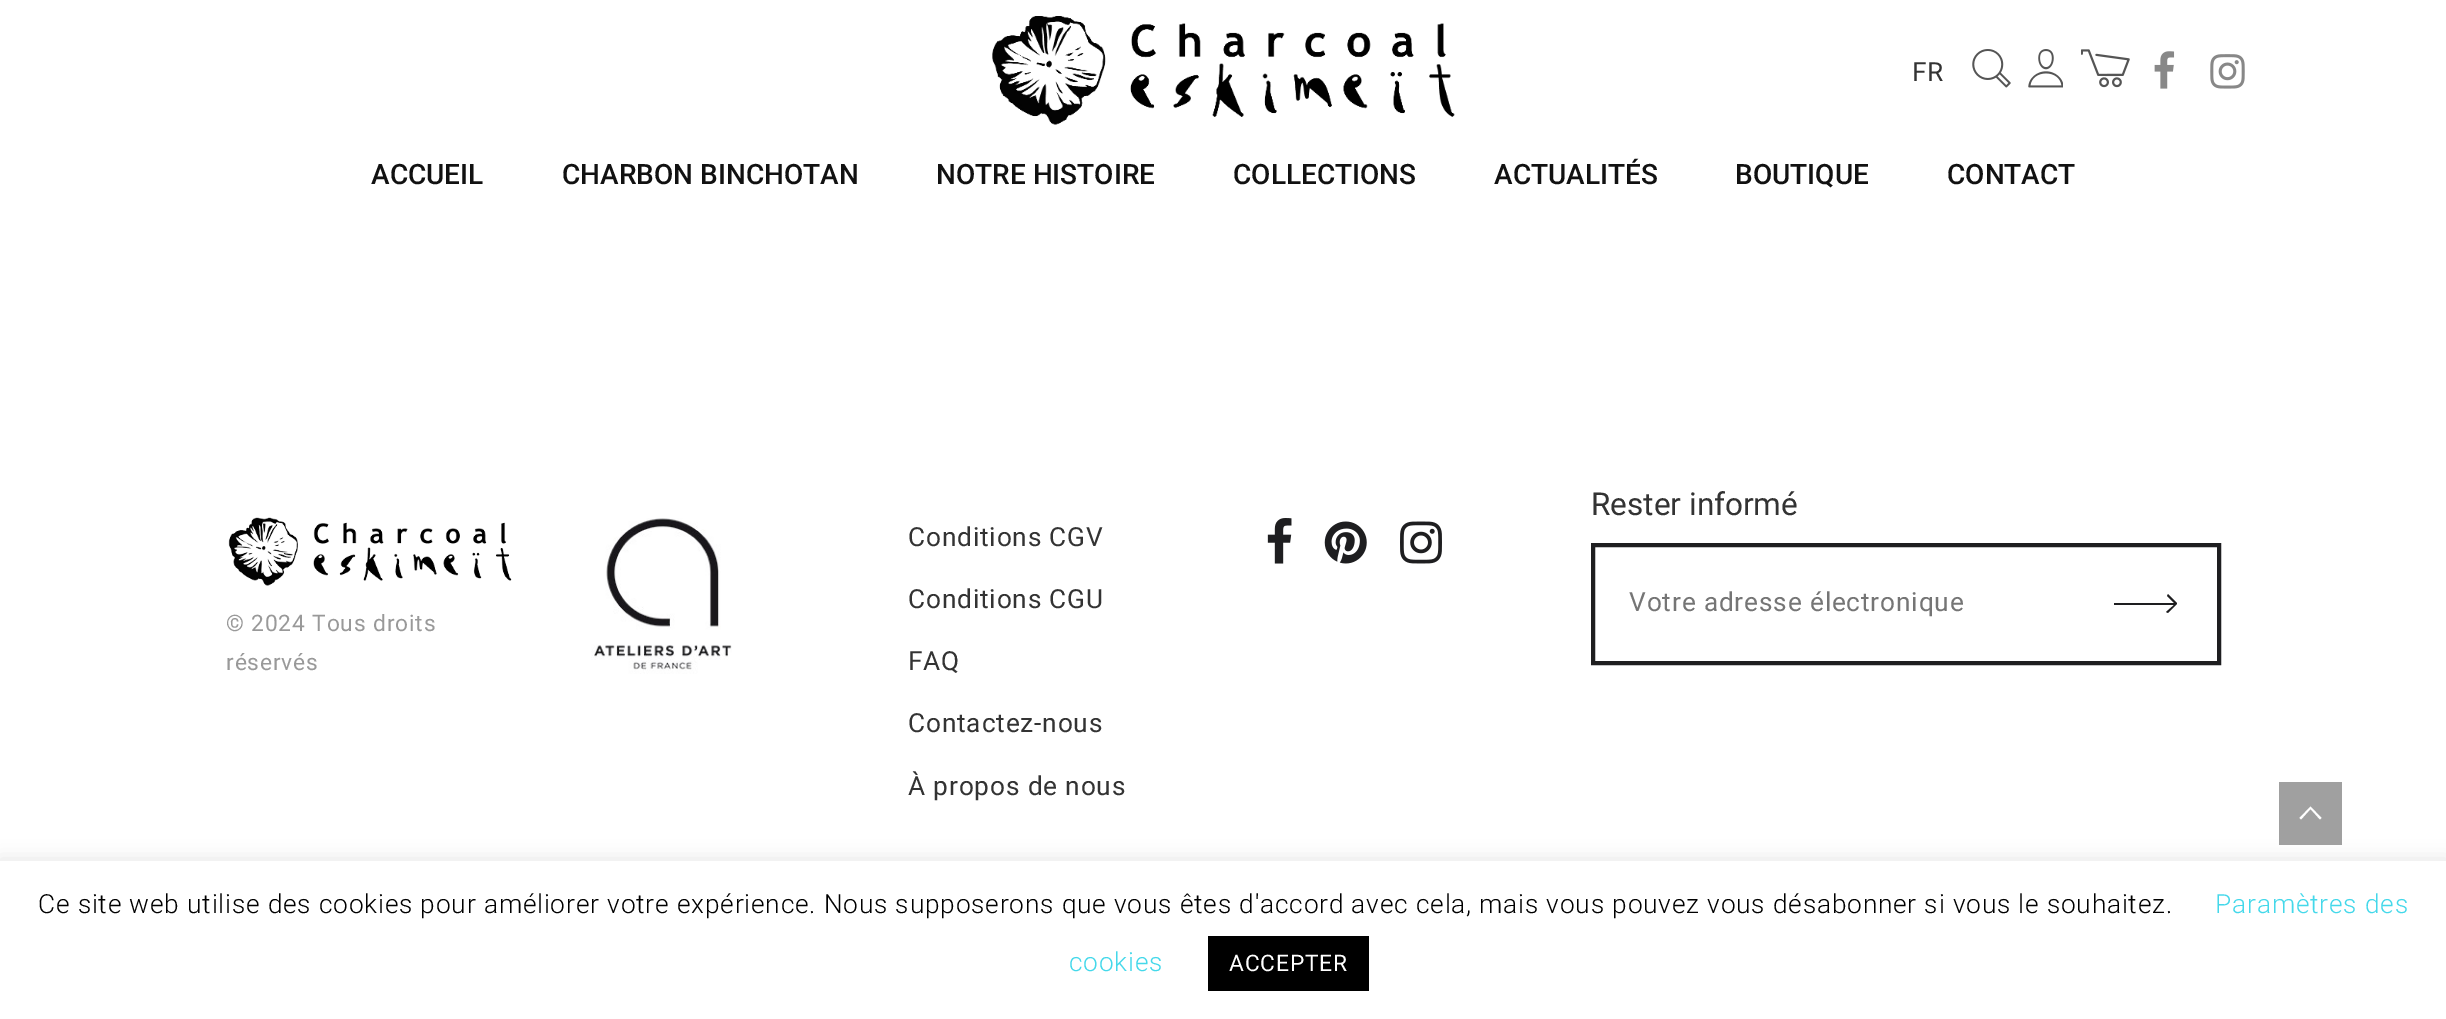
%!PS
<< /PageSize [2446 1019] /PageUsesTransparency true >> setpagedevice
/rgb { 3 { 255 div 3 1 roll } repeat setrgbcolor } def
/font { [ exch dup neg 0 0 3 -1 roll 0 0 ] selectfont } def
/alpha { dup .setfillconstantalpha .setstrokeconstantalpha } def
/roundrect { 5 dict begin { /r /h /w /y /x } { exch def } forall
  x r add y moveto x w add y 2 copy h add r arct x w add y h add x 1 index r arct
  x y h add x y r arct x y 2 copy exch w add exch r arct closepath end } def
/shadow { 12 dict begin { /a /b /q /h /w /y /x } { exch def } forall gsave /was 0 def
  9 -2 -9 { dup b mul 4 div /e exch def 1 sub .425 mul 2.718 exch exp 1 add a .99 .min exch div /now exch def
    1 1 now sub 1 was sub div sub alpha /was now def
    w h .min e 2 mul add 0 gt { x e sub y e sub w e 2 mul add h e 2 mul add
      q e add b .6 mul add w h .min 2 div e add .min 0 .max roundrect fill } if } for grestore end } def
/picture { 5 dict begin { /h /w /y /x /name } { exch def } forall
  gsave x y translate w h scale
  w h 8 [w 0 0 h 0 0] name (r) file false 3 colorimage grestore end } def
0 .pushpdf14devicefilter
0 1019 translate 1 -1 scale
4 setmiterlimit
255 255 255 rgb
0 0 2446 1019 rectfill
(img/1.rgb) 992 16 463 109 picture
(img/2.rgb) 1972 49 39 39 picture
(img/3.rgb) 2028 49 35 39 picture
(img/4.rgb) 2081 49 49 39 picture
(img/5.rgb) 2154 51 21 38 picture
(img/6.rgb) 2210 54 35 35 picture
(img/7.rgb) 228 517 284 69 picture
(img/8.rgb) 591 518 141 156 picture
(img/9.rgb) 1267 518 25 46 picture
(img/10.rgb) 1324 521 43 43 picture
(img/11.rgb) 1400 521 42 43 picture
30 30 32 rgb
4 setlinewidth
1593 545 626 118 rectstroke
2166 612 moveto 2174 605 lineto 2114 605 lineto 2114 603 lineto 2174 603 lineto 2167 596 lineto 2168 594 lineto 2177 603 lineto 2177 604 lineto 2168 613 lineto closepath fill
160 160 160 rgb
2279 782 63 63 rectfill
255 255 255 rgb
2320 819.5 moveto 2310.5 809 lineto 2301 819.5 lineto 2299.5 818 lineto 2310.5 806.5 lineto 2321.5 818 lineto closepath fill
172 171 171 rgb
0 859 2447 160 0 9 0.3 shadow
255 255 255 rgb
0 861 2446 158 rectfill
0 0 0 rgb
1208 936 161 55 rectfill
/Roboto-Regular 26.25 font
51 51 51 rgb
1912 81 moveto (FR) show
/Roboto-Medium 28 font
17 17 17 rgb
[
  [(ACCUEIL) 371 184]
  [(CHARBON BINCHOTAN) 562 184]
  [(NOTRE HISTOIRE) 936 184]
  [(COLLECTIONS) 1233 184]
  [(ACTUALITÉS) 1494 184]
  [(BOUTIQUE) 1735 184]
  [(CONTACT) 1947 184]
] { aload pop moveto show } forall
/Roboto-Regular 22.75 font
153 153 153 rgb
226 631 moveto 0.84 0 (© 2024 Tous droits) ashow
226 670 moveto 0.84 0 (réservés) ashow
/Roboto-Regular 26.25 font
51 51 51 rgb
908 546 moveto 0.84 0 (Conditions CGV) ashow
908 608 moveto 0.84 0 (Conditions CGU) ashow
908 670 moveto 0.84 0 (FAQ) ashow
908 732 moveto 0.84 0 (Contactez-nous) ashow
908 795 moveto 0.84 0 (À propos de nous) ashow
/Roboto-Regular 31.5 font
1591 515 moveto (Rester informé) show
/Roboto-Regular 26.25 font
117 117 117 rgb
1629 611 moveto 0.84 0 (Votre adresse électronique) ashow
/Roboto-Light 26.25 font
0 0 0 rgb
38 913 moveto 0.84 0 (Ce site web utilise des cookies pour améliorer votre expérience. Nous supposerons que vous êtes d'accord avec cela, mais vous pouvez vous désabonner si vous le souhaitez.) ashow
68 216 234 rgb
2215 913 moveto 0.84 0 (Paramètres des) ashow
1069 971 moveto 0.84 0 (cookies) ashow
/Roboto-Regular 22.75 font
255 255 255 rgb
1229 971 moveto 0.84 0 (ACCEPTER) ashow
.poppdf14devicefilter showpage
